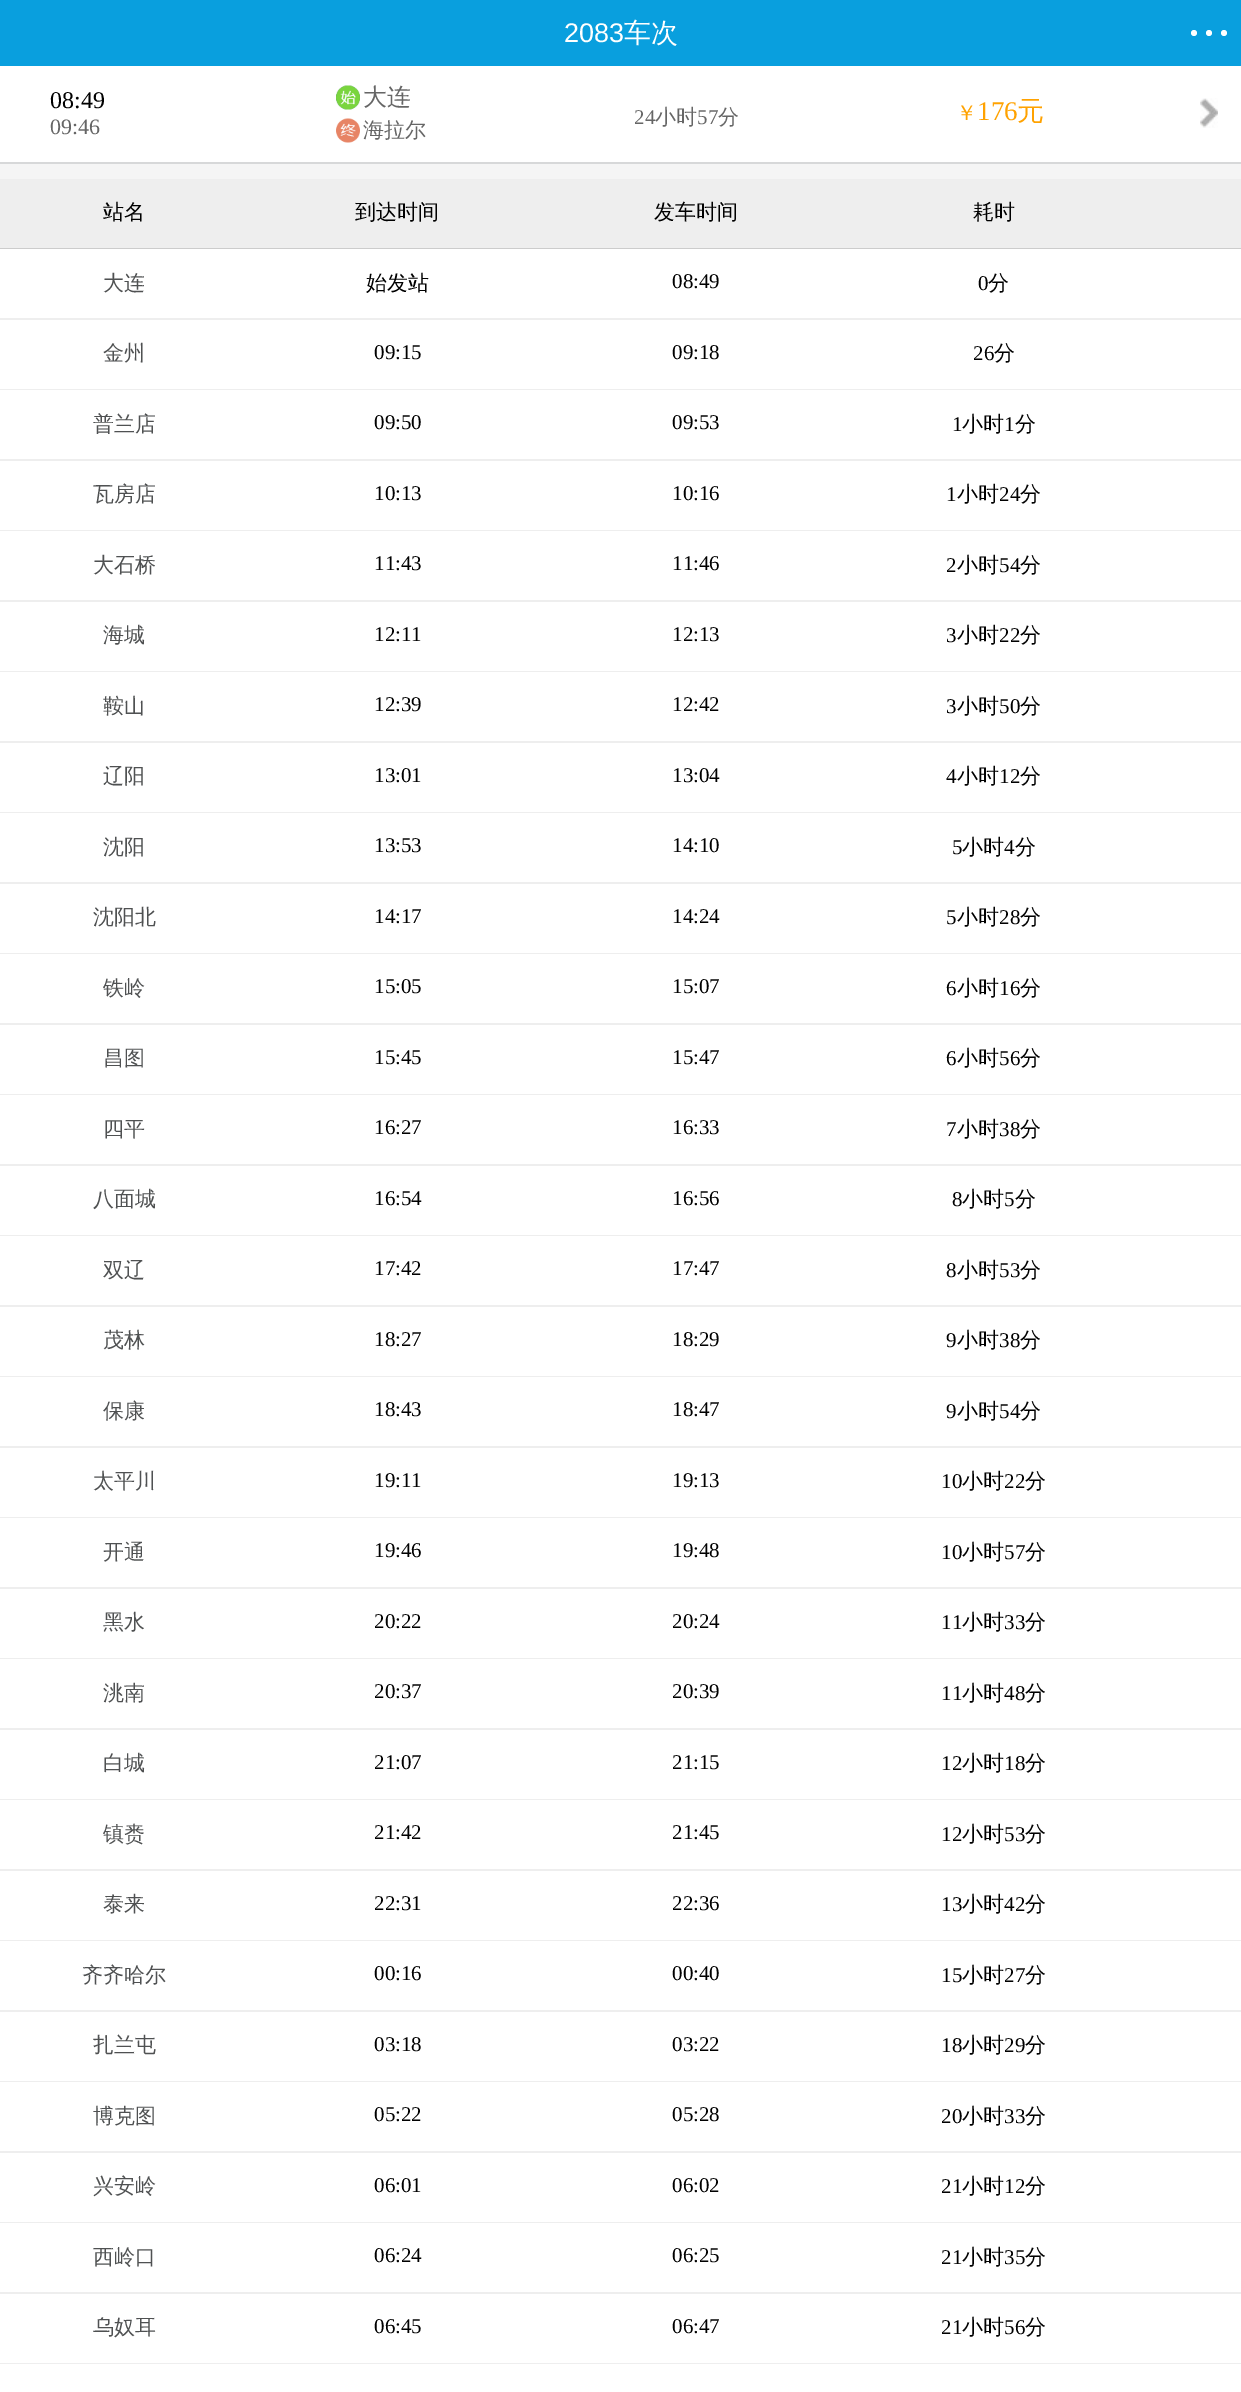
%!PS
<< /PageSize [1241 2392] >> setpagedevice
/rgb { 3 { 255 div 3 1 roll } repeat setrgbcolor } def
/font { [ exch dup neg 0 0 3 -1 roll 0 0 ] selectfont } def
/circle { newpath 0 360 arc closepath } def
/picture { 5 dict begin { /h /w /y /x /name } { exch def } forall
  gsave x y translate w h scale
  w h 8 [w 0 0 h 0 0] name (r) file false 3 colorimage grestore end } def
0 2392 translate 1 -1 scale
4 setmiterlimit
245 245 245 rgb
0 0 1241 2392 rectfill
9 159 222 rgb
0 0 1241 66 rectfill
255 255 255 rgb
1194 33 3 circle fill
1209 33 3 circle fill
1224 33 3 circle fill
0 66 1241 96 rectfill
215 216 217 rgb
0 162 1241 2 rectfill
(img/1.rgb) 336 85 24 25 picture
(img/2.rgb) 336 118 24 25 picture
(img/3.rgb) 1200 98 18 30 picture
[
  [0 179 1241 69 238 238 238]
  [0 248 1241 1 204 204 204]
  [0 249 1241 69 255 255 255]
  [0 318 1241 2 238 238 238]
  [0 320 1241 69 255 255 255]
  [0 389 1241 1 238 238 238]
  [0 390 1241 69 255 255 255]
  [0 459 1241 2 238 238 238]
  [0 461 1241 69 255 255 255]
  [0 530 1241 1 238 238 238]
  [0 531 1241 69 255 255 255]
  [0 600 1241 2 238 238 238]
  [0 602 1241 69 255 255 255]
  [0 671 1241 1 238 238 238]
  [0 672 1241 69 255 255 255]
  [0 741 1241 2 238 238 238]
  [0 743 1241 69 255 255 255]
  [0 812 1241 1 238 238 238]
  [0 813 1241 69 255 255 255]
  [0 882 1241 2 238 238 238]
  [0 884 1241 69 255 255 255]
  [0 953 1241 1 238 238 238]
  [0 954 1241 69 255 255 255]
  [0 1023 1241 2 238 238 238]
  [0 1025 1241 69 255 255 255]
  [0 1094 1241 1 238 238 238]
  [0 1095 1241 69 255 255 255]
  [0 1164 1241 2 238 238 238]
  [0 1166 1241 69 255 255 255]
  [0 1235 1241 1 238 238 238]
  [0 1236 1241 69 255 255 255]
  [0 1305 1241 2 238 238 238]
  [0 1307 1241 69 255 255 255]
  [0 1376 1241 1 238 238 238]
  [0 1377 1241 69 255 255 255]
  [0 1446 1241 2 238 238 238]
  [0 1448 1241 69 255 255 255]
  [0 1517 1241 1 238 238 238]
  [0 1518 1241 69 255 255 255]
  [0 1587 1241 2 238 238 238]
  [0 1589 1241 69 255 255 255]
  [0 1658 1241 1 238 238 238]
  [0 1659 1241 69 255 255 255]
  [0 1728 1241 2 238 238 238]
  [0 1730 1241 69 255 255 255]
  [0 1799 1241 1 238 238 238]
  [0 1800 1241 69 255 255 255]
  [0 1869 1241 2 238 238 238]
  [0 1871 1241 69 255 255 255]
  [0 1940 1241 1 238 238 238]
  [0 1941 1241 69 255 255 255]
  [0 2010 1241 2 238 238 238]
  [0 2012 1241 69 255 255 255]
  [0 2081 1241 1 238 238 238]
  [0 2082 1241 69 255 255 255]
  [0 2151 1241 2 238 238 238]
  [0 2153 1241 69 255 255 255]
  [0 2222 1241 1 238 238 238]
  [0 2223 1241 69 255 255 255]
  [0 2292 1241 2 238 238 238]
  [0 2294 1241 69 255 255 255]
  [0 2363 1241 1 238 238 238]
  [0 2364 1241 28 255 255 255]
] { aload pop rgb rectfill } forall
/LiberationSans-Regular 27 font
564 42 moveto (2083) show
/WenQuanYiZenHei-Medium 27 font
624 42 moveto (车次) show
/LiberationSerif-Regular 24 font
0 0 0 rgb
50 108 moveto (08:49) show
/LiberationSerif-Regular 22 font
102 102 102 rgb
50 134 moveto (09:46) show
/WenQuanYiZenHei-Medium 24 font
363 105 moveto (大连) show
/WenQuanYiZenHei-Medium 21 font
363 137 moveto (海拉尔) show
/LiberationSerif-Regular 21 font
634 124 moveto (24) show
/WenQuanYiZenHei-Medium 21 font
655 124 moveto (小时) show
/LiberationSerif-Regular 21 font
697 124 moveto (57) show
/WenQuanYiZenHei-Medium 21 font
718 124 moveto (分) show
255 162 0 rgb
956 120 moveto (￥) show
/LiberationSerif-Regular 27 font
977 120 moveto (176) show
/WenQuanYiZenHei-Medium 27 font
1017 120 moveto (元) show
/WenQuanYiZenHei-Medium 21 font
0 0 0 rgb
[
  [(站名) 103 219]
  [(到达时间) 355 219]
  [(发车时间) 654 219]
  [(耗时) 973 219]
] { aload pop moveto show } forall
79 81 82 rgb
103 290 moveto (大连) show
0 0 0 rgb
366 290 moveto (始发站) show
/LiberationSerif-Regular 21 font
672 288 moveto (08:49) show
978 290 moveto (0) show
/WenQuanYiZenHei-Medium 21 font
988 290 moveto (分) show
79 81 82 rgb
103 360 moveto (金州) show
/LiberationSerif-Regular 21 font
0 0 0 rgb
[
  [(09:15) 374 359]
  [(09:18) 672 359]
  [(26) 973 360]
] { aload pop moveto show } forall
/WenQuanYiZenHei-Medium 21 font
994 360 moveto (分) show
79 81 82 rgb
93 431 moveto (普兰店) show
/LiberationSerif-Regular 21 font
0 0 0 rgb
[
  [(09:50) 374 429]
  [(09:53) 672 429]
  [(1) 952 431]
] { aload pop moveto show } forall
/WenQuanYiZenHei-Medium 21 font
962 431 moveto (小时) show
/LiberationSerif-Regular 21 font
1004 431 moveto (1) show
/WenQuanYiZenHei-Medium 21 font
1015 431 moveto (分) show
79 81 82 rgb
93 501 moveto (瓦房店) show
/LiberationSerif-Regular 21 font
0 0 0 rgb
[
  [(10:13) 374 500]
  [(10:16) 672 500]
  [(1) 946 501]
] { aload pop moveto show } forall
/WenQuanYiZenHei-Medium 21 font
957 501 moveto (小时) show
/LiberationSerif-Regular 21 font
999 501 moveto (24) show
/WenQuanYiZenHei-Medium 21 font
1020 501 moveto (分) show
79 81 82 rgb
93 572 moveto (大石桥) show
/LiberationSerif-Regular 21 font
0 0 0 rgb
[
  [(11:43) 374 570]
  [(11:46) 672 570]
  [(2) 946 572]
] { aload pop moveto show } forall
/WenQuanYiZenHei-Medium 21 font
957 572 moveto (小时) show
/LiberationSerif-Regular 21 font
999 572 moveto (54) show
/WenQuanYiZenHei-Medium 21 font
1020 572 moveto (分) show
79 81 82 rgb
103 642 moveto (海城) show
/LiberationSerif-Regular 21 font
0 0 0 rgb
[
  [(12:11) 374 641]
  [(12:13) 672 641]
  [(3) 946 642]
] { aload pop moveto show } forall
/WenQuanYiZenHei-Medium 21 font
957 642 moveto (小时) show
/LiberationSerif-Regular 21 font
999 642 moveto (22) show
/WenQuanYiZenHei-Medium 21 font
1020 642 moveto (分) show
79 81 82 rgb
103 713 moveto (鞍山) show
/LiberationSerif-Regular 21 font
0 0 0 rgb
[
  [(12:39) 374 711]
  [(12:42) 672 711]
  [(3) 946 713]
] { aload pop moveto show } forall
/WenQuanYiZenHei-Medium 21 font
957 713 moveto (小时) show
/LiberationSerif-Regular 21 font
999 713 moveto (50) show
/WenQuanYiZenHei-Medium 21 font
1020 713 moveto (分) show
79 81 82 rgb
103 783 moveto (辽阳) show
/LiberationSerif-Regular 21 font
0 0 0 rgb
[
  [(13:01) 374 782]
  [(13:04) 672 782]
  [(4) 946 783]
] { aload pop moveto show } forall
/WenQuanYiZenHei-Medium 21 font
957 783 moveto (小时) show
/LiberationSerif-Regular 21 font
999 783 moveto (12) show
/WenQuanYiZenHei-Medium 21 font
1020 783 moveto (分) show
79 81 82 rgb
103 854 moveto (沈阳) show
/LiberationSerif-Regular 21 font
0 0 0 rgb
[
  [(13:53) 374 852]
  [(14:10) 672 852]
  [(5) 952 854]
] { aload pop moveto show } forall
/WenQuanYiZenHei-Medium 21 font
962 854 moveto (小时) show
/LiberationSerif-Regular 21 font
1004 854 moveto (4) show
/WenQuanYiZenHei-Medium 21 font
1015 854 moveto (分) show
79 81 82 rgb
93 924 moveto (沈阳北) show
/LiberationSerif-Regular 21 font
0 0 0 rgb
[
  [(14:17) 374 923]
  [(14:24) 672 923]
  [(5) 946 924]
] { aload pop moveto show } forall
/WenQuanYiZenHei-Medium 21 font
957 924 moveto (小时) show
/LiberationSerif-Regular 21 font
999 924 moveto (28) show
/WenQuanYiZenHei-Medium 21 font
1020 924 moveto (分) show
79 81 82 rgb
103 995 moveto (铁岭) show
/LiberationSerif-Regular 21 font
0 0 0 rgb
[
  [(15:05) 374 993]
  [(15:07) 672 993]
  [(6) 946 995]
] { aload pop moveto show } forall
/WenQuanYiZenHei-Medium 21 font
957 995 moveto (小时) show
/LiberationSerif-Regular 21 font
999 995 moveto (16) show
/WenQuanYiZenHei-Medium 21 font
1020 995 moveto (分) show
79 81 82 rgb
103 1065 moveto (昌图) show
/LiberationSerif-Regular 21 font
0 0 0 rgb
[
  [(15:45) 374 1064]
  [(15:47) 672 1064]
  [(6) 946 1065]
] { aload pop moveto show } forall
/WenQuanYiZenHei-Medium 21 font
957 1065 moveto (小时) show
/LiberationSerif-Regular 21 font
999 1065 moveto (56) show
/WenQuanYiZenHei-Medium 21 font
1020 1065 moveto (分) show
79 81 82 rgb
103 1136 moveto (四平) show
/LiberationSerif-Regular 21 font
0 0 0 rgb
[
  [(16:27) 374 1134]
  [(16:33) 672 1134]
  [(7) 946 1136]
] { aload pop moveto show } forall
/WenQuanYiZenHei-Medium 21 font
957 1136 moveto (小时) show
/LiberationSerif-Regular 21 font
999 1136 moveto (38) show
/WenQuanYiZenHei-Medium 21 font
1020 1136 moveto (分) show
79 81 82 rgb
93 1206 moveto (八面城) show
/LiberationSerif-Regular 21 font
0 0 0 rgb
[
  [(16:54) 374 1205]
  [(16:56) 672 1205]
  [(8) 952 1206]
] { aload pop moveto show } forall
/WenQuanYiZenHei-Medium 21 font
962 1206 moveto (小时) show
/LiberationSerif-Regular 21 font
1004 1206 moveto (5) show
/WenQuanYiZenHei-Medium 21 font
1015 1206 moveto (分) show
79 81 82 rgb
103 1277 moveto (双辽) show
/LiberationSerif-Regular 21 font
0 0 0 rgb
[
  [(17:42) 374 1275]
  [(17:47) 672 1275]
  [(8) 946 1277]
] { aload pop moveto show } forall
/WenQuanYiZenHei-Medium 21 font
957 1277 moveto (小时) show
/LiberationSerif-Regular 21 font
999 1277 moveto (53) show
/WenQuanYiZenHei-Medium 21 font
1020 1277 moveto (分) show
79 81 82 rgb
103 1347 moveto (茂林) show
/LiberationSerif-Regular 21 font
0 0 0 rgb
[
  [(18:27) 374 1346]
  [(18:29) 672 1346]
  [(9) 946 1347]
] { aload pop moveto show } forall
/WenQuanYiZenHei-Medium 21 font
957 1347 moveto (小时) show
/LiberationSerif-Regular 21 font
999 1347 moveto (38) show
/WenQuanYiZenHei-Medium 21 font
1020 1347 moveto (分) show
79 81 82 rgb
103 1418 moveto (保康) show
/LiberationSerif-Regular 21 font
0 0 0 rgb
[
  [(18:43) 374 1416]
  [(18:47) 672 1416]
  [(9) 946 1418]
] { aload pop moveto show } forall
/WenQuanYiZenHei-Medium 21 font
957 1418 moveto (小时) show
/LiberationSerif-Regular 21 font
999 1418 moveto (54) show
/WenQuanYiZenHei-Medium 21 font
1020 1418 moveto (分) show
79 81 82 rgb
93 1488 moveto (太平川) show
/LiberationSerif-Regular 21 font
0 0 0 rgb
[
  [(19:11) 374 1487]
  [(19:13) 672 1487]
  [(10) 941 1488]
] { aload pop moveto show } forall
/WenQuanYiZenHei-Medium 21 font
962 1488 moveto (小时) show
/LiberationSerif-Regular 21 font
1004 1488 moveto (22) show
/WenQuanYiZenHei-Medium 21 font
1025 1488 moveto (分) show
79 81 82 rgb
103 1559 moveto (开通) show
/LiberationSerif-Regular 21 font
0 0 0 rgb
[
  [(19:46) 374 1557]
  [(19:48) 672 1557]
  [(10) 941 1559]
] { aload pop moveto show } forall
/WenQuanYiZenHei-Medium 21 font
962 1559 moveto (小时) show
/LiberationSerif-Regular 21 font
1004 1559 moveto (57) show
/WenQuanYiZenHei-Medium 21 font
1025 1559 moveto (分) show
79 81 82 rgb
103 1629 moveto (黑水) show
/LiberationSerif-Regular 21 font
0 0 0 rgb
[
  [(20:22) 374 1628]
  [(20:24) 672 1628]
  [(11) 941 1629]
] { aload pop moveto show } forall
/WenQuanYiZenHei-Medium 21 font
962 1629 moveto (小时) show
/LiberationSerif-Regular 21 font
1004 1629 moveto (33) show
/WenQuanYiZenHei-Medium 21 font
1025 1629 moveto (分) show
79 81 82 rgb
103 1700 moveto (洮南) show
/LiberationSerif-Regular 21 font
0 0 0 rgb
[
  [(20:37) 374 1698]
  [(20:39) 672 1698]
  [(11) 941 1700]
] { aload pop moveto show } forall
/WenQuanYiZenHei-Medium 21 font
962 1700 moveto (小时) show
/LiberationSerif-Regular 21 font
1004 1700 moveto (48) show
/WenQuanYiZenHei-Medium 21 font
1025 1700 moveto (分) show
79 81 82 rgb
103 1770 moveto (白城) show
/LiberationSerif-Regular 21 font
0 0 0 rgb
[
  [(21:07) 374 1769]
  [(21:15) 672 1769]
  [(12) 941 1770]
] { aload pop moveto show } forall
/WenQuanYiZenHei-Medium 21 font
962 1770 moveto (小时) show
/LiberationSerif-Regular 21 font
1004 1770 moveto (18) show
/WenQuanYiZenHei-Medium 21 font
1025 1770 moveto (分) show
79 81 82 rgb
103 1841 moveto (镇赉) show
/LiberationSerif-Regular 21 font
0 0 0 rgb
[
  [(21:42) 374 1839]
  [(21:45) 672 1839]
  [(12) 941 1841]
] { aload pop moveto show } forall
/WenQuanYiZenHei-Medium 21 font
962 1841 moveto (小时) show
/LiberationSerif-Regular 21 font
1004 1841 moveto (53) show
/WenQuanYiZenHei-Medium 21 font
1025 1841 moveto (分) show
79 81 82 rgb
103 1911 moveto (泰来) show
/LiberationSerif-Regular 21 font
0 0 0 rgb
[
  [(22:31) 374 1910]
  [(22:36) 672 1910]
  [(13) 941 1911]
] { aload pop moveto show } forall
/WenQuanYiZenHei-Medium 21 font
962 1911 moveto (小时) show
/LiberationSerif-Regular 21 font
1004 1911 moveto (42) show
/WenQuanYiZenHei-Medium 21 font
1025 1911 moveto (分) show
79 81 82 rgb
82 1982 moveto (齐齐哈尔) show
/LiberationSerif-Regular 21 font
0 0 0 rgb
[
  [(00:16) 374 1980]
  [(00:40) 672 1980]
  [(15) 941 1982]
] { aload pop moveto show } forall
/WenQuanYiZenHei-Medium 21 font
962 1982 moveto (小时) show
/LiberationSerif-Regular 21 font
1004 1982 moveto (27) show
/WenQuanYiZenHei-Medium 21 font
1025 1982 moveto (分) show
79 81 82 rgb
93 2052 moveto (扎兰屯) show
/LiberationSerif-Regular 21 font
0 0 0 rgb
[
  [(03:18) 374 2051]
  [(03:22) 672 2051]
  [(18) 941 2052]
] { aload pop moveto show } forall
/WenQuanYiZenHei-Medium 21 font
962 2052 moveto (小时) show
/LiberationSerif-Regular 21 font
1004 2052 moveto (29) show
/WenQuanYiZenHei-Medium 21 font
1025 2052 moveto (分) show
79 81 82 rgb
93 2123 moveto (博克图) show
/LiberationSerif-Regular 21 font
0 0 0 rgb
[
  [(05:22) 374 2121]
  [(05:28) 672 2121]
  [(20) 941 2123]
] { aload pop moveto show } forall
/WenQuanYiZenHei-Medium 21 font
962 2123 moveto (小时) show
/LiberationSerif-Regular 21 font
1004 2123 moveto (33) show
/WenQuanYiZenHei-Medium 21 font
1025 2123 moveto (分) show
79 81 82 rgb
93 2193 moveto (兴安岭) show
/LiberationSerif-Regular 21 font
0 0 0 rgb
[
  [(06:01) 374 2192]
  [(06:02) 672 2192]
  [(21) 941 2193]
] { aload pop moveto show } forall
/WenQuanYiZenHei-Medium 21 font
962 2193 moveto (小时) show
/LiberationSerif-Regular 21 font
1004 2193 moveto (12) show
/WenQuanYiZenHei-Medium 21 font
1025 2193 moveto (分) show
79 81 82 rgb
93 2264 moveto (西岭口) show
/LiberationSerif-Regular 21 font
0 0 0 rgb
[
  [(06:24) 374 2262]
  [(06:25) 672 2262]
  [(21) 941 2264]
] { aload pop moveto show } forall
/WenQuanYiZenHei-Medium 21 font
962 2264 moveto (小时) show
/LiberationSerif-Regular 21 font
1004 2264 moveto (35) show
/WenQuanYiZenHei-Medium 21 font
1025 2264 moveto (分) show
79 81 82 rgb
93 2334 moveto (乌奴耳) show
/LiberationSerif-Regular 21 font
0 0 0 rgb
[
  [(06:45) 374 2333]
  [(06:47) 672 2333]
  [(21) 941 2334]
] { aload pop moveto show } forall
/WenQuanYiZenHei-Medium 21 font
962 2334 moveto (小时) show
/LiberationSerif-Regular 21 font
1004 2334 moveto (56) show
/WenQuanYiZenHei-Medium 21 font
1025 2334 moveto (分) show
showpage
